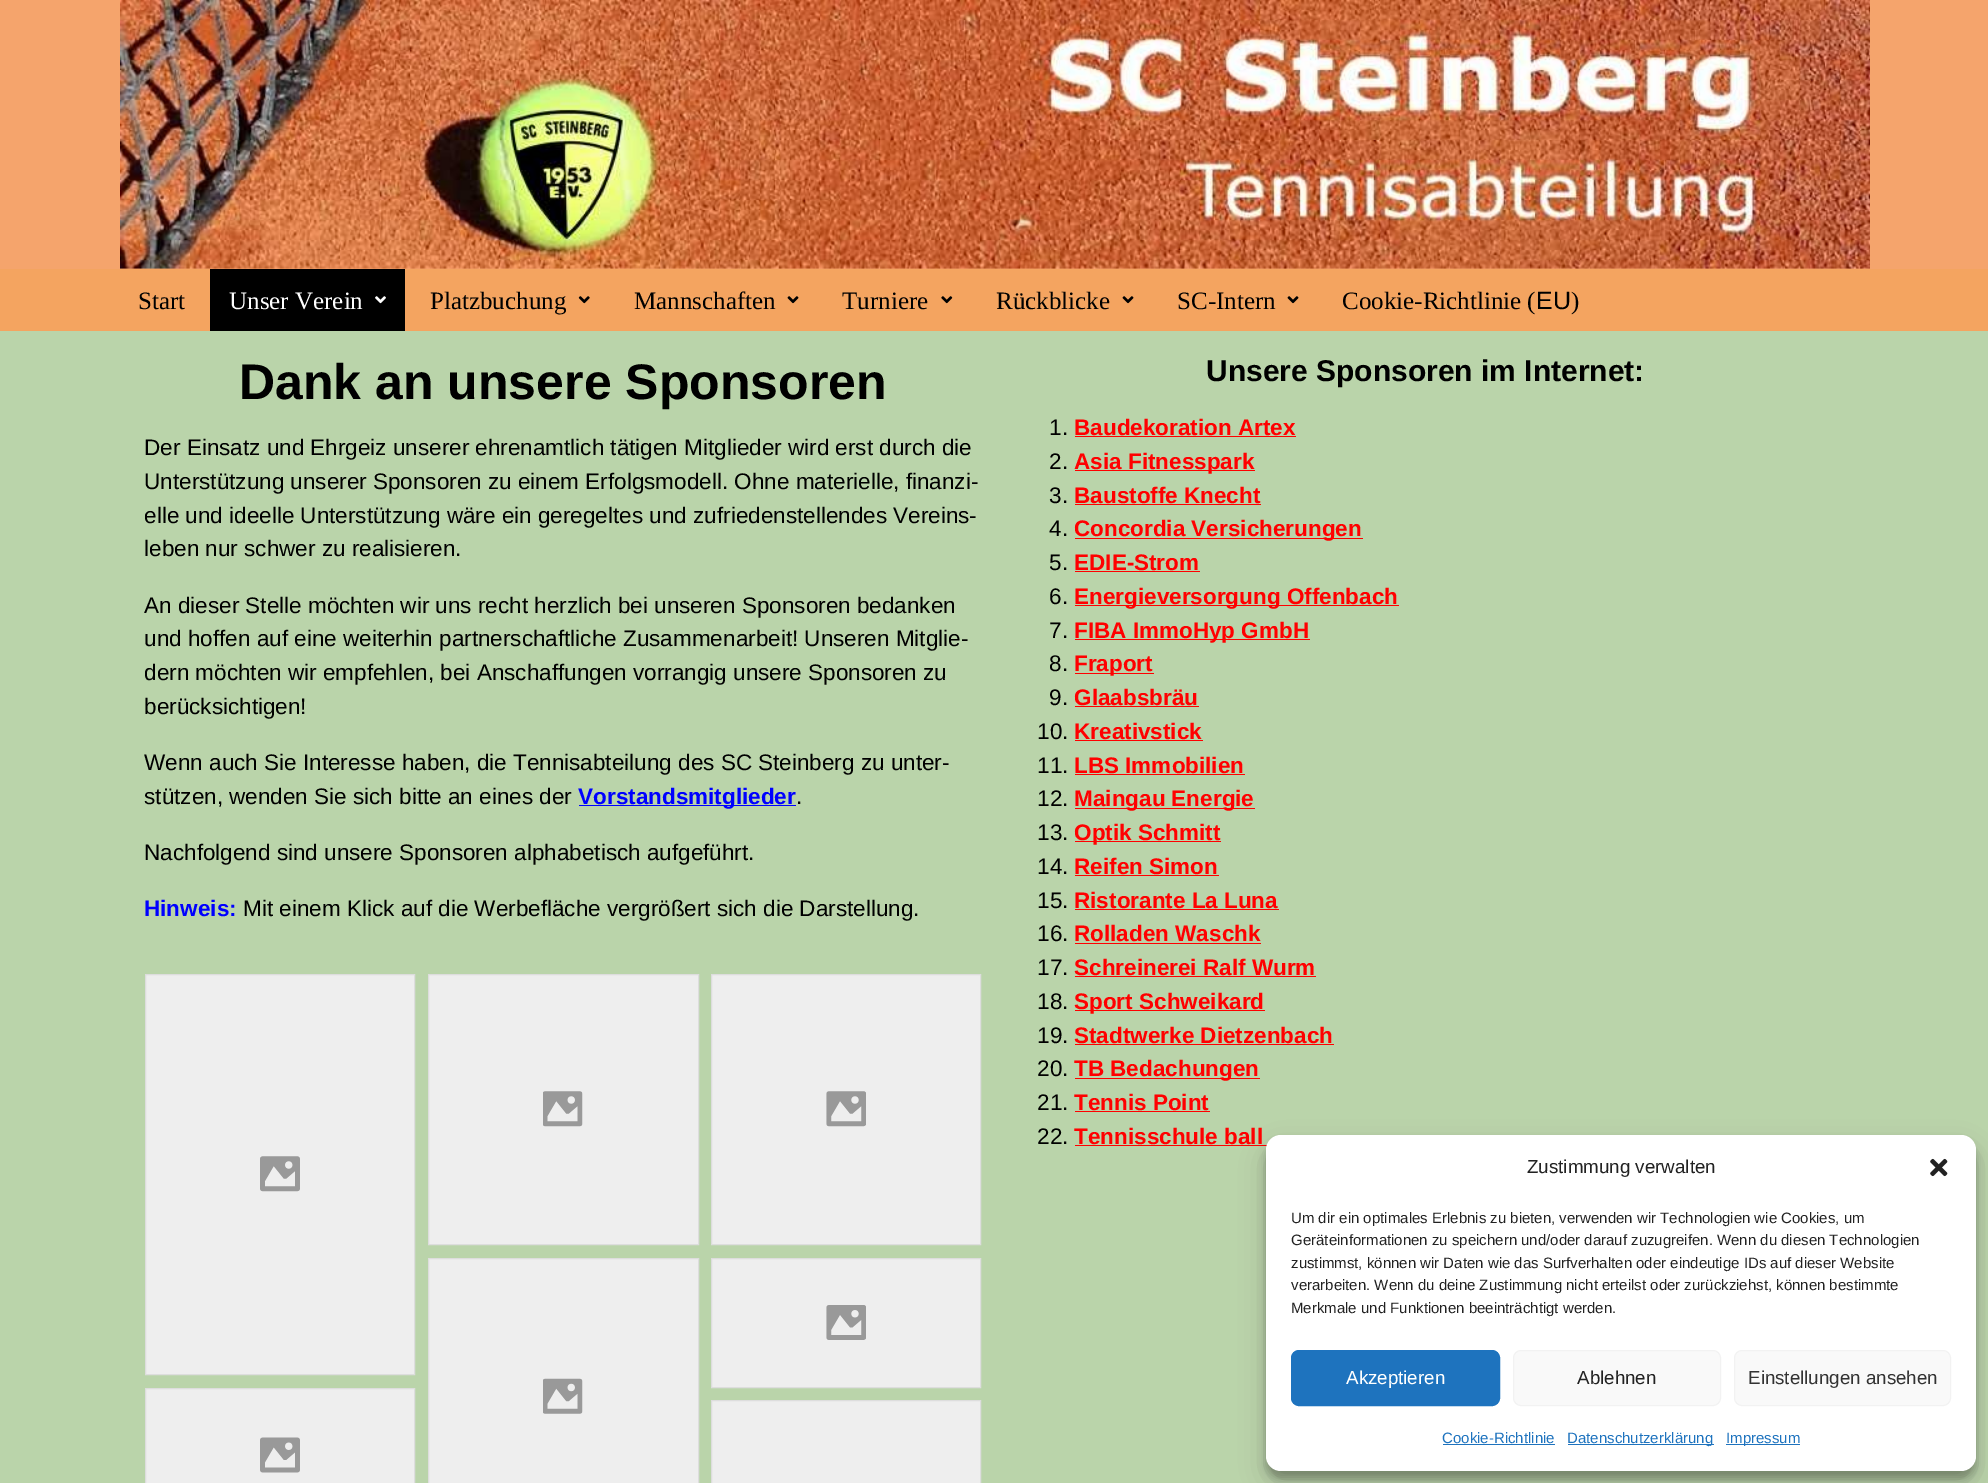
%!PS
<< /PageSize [1988 1483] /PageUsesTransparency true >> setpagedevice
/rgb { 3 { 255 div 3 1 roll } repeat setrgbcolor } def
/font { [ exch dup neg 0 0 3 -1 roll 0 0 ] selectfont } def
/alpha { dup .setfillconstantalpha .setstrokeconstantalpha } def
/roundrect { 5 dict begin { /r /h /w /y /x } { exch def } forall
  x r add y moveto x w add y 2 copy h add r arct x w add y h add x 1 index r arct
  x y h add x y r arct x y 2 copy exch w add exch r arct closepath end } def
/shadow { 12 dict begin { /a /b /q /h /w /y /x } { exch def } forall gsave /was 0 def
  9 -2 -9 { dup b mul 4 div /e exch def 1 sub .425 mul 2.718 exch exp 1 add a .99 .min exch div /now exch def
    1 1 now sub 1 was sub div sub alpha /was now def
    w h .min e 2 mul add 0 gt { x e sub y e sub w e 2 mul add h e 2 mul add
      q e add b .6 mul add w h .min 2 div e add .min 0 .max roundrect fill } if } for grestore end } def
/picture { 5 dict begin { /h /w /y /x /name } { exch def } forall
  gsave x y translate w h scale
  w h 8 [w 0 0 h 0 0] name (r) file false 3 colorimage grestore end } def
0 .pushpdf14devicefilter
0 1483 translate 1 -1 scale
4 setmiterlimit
186 212 170 rgb
0 0 1988 1483 rectfill
245 164 108 rgb
0 0 1988 269 rectfill
(img/1.rgb) 120 0 1750 269 picture
244 164 96 rgb
0 269 1988 62 rectfill
0 0 0 rgb
210 269 195 62 rectfill
(img/2.rgb) 375 296 11 8 picture
(img/3.rgb) 578 296 12 8 picture
(img/4.rgb) 787 296 12 8 picture
(img/5.rgb) 941 296 12 8 picture
(img/4.rgb) 1122 296 12 8 picture
(img/4.rgb) 1287 296 12 8 picture
0 0 255 rgb
579 805 217 1 rectfill
238 238 238 rgb
145.5 974.5 moveto 414.5 974.5 lineto 414.5 1374.5 lineto 145.5 1374.5 lineto closepath gsave fill grestore
221 221 221 rgb
stroke
(img/6.rgb) 260 1156 40 36 picture
238 238 238 rgb
428.5 974.5 moveto 698.5 974.5 lineto 698.5 1244.5 lineto 428.5 1244.5 lineto closepath gsave fill grestore
221 221 221 rgb
stroke
(img/7.rgb) 543 1091 40 36 picture
238 238 238 rgb
711.5 974.5 moveto 980.5 974.5 lineto 980.5 1244.5 lineto 711.5 1244.5 lineto closepath gsave fill grestore
221 221 221 rgb
stroke
(img/8.rgb) 826 1091 40 36 picture
238 238 238 rgb
428.5 1258.5 moveto 698.5 1258.5 lineto 698.5 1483.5 lineto 428.5 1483.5 lineto closepath gsave fill grestore
221 221 221 rgb
stroke
(img/9.rgb) 543 1378 40 36 picture
238 238 238 rgb
711.5 1258.5 moveto 980.5 1258.5 lineto 980.5 1387.5 lineto 711.5 1387.5 lineto closepath gsave fill grestore
221 221 221 rgb
stroke
(img/10.rgb) 826 1305 40 35 picture
238 238 238 rgb
145.5 1388.5 moveto 414.5 1388.5 lineto 414.5 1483.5 lineto 145.5 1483.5 lineto closepath gsave fill grestore
221 221 221 rgb
stroke
(img/11.rgb) 260 1437 40 36 picture
238 238 238 rgb
711.5 1400.5 moveto 980.5 1400.5 lineto 980.5 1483.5 lineto 711.5 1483.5 lineto closepath gsave fill grestore
221 221 221 rgb
stroke
[
  [1075 436 221 1 255 0 0]
  [1075 470 180 1 255 0 0]
  [1075 504 186 1 255 0 0]
  [1075 538 288 1 255 0 0]
  [1075 571 125 1 255 0 0]
  [1075 605 324 1 255 0 0]
  [1075 639 235 1 255 0 0]
  [1075 673 79 1 255 0 0]
  [1075 706 124 1 255 0 0]
  [1075 740 128 1 255 0 0]
  [1075 774 170 1 255 0 0]
  [1075 808 180 1 255 0 0]
  [1075 841 146 1 255 0 0]
  [1075 875 144 1 255 0 0]
  [1075 909 204 1 255 0 0]
  [1075 943 186 1 255 0 0]
  [1075 976 241 1 255 0 0]
  [1075 1010 190 1 255 0 0]
  [1075 1044 259 1 255 0 0]
  [1075 1078 185 1 255 0 0]
  [1075 1111 135 1 255 0 0]
  [1075 1145 192 1 255 0 0]
] { aload pop rgb rectfill } forall
0 0 0 rgb
1266 1143 710 336 15 4 0.23 shadow
1266 1148 710 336 15 12.5 0.19 shadow
255 255 255 rgb
1266 1135 710 336 15 roundrect fill
(img/12.rgb) 1930 1158 18 19 picture
30 115 190 rgb
1291.5 1350.5 208 55 7.5 roundrect gsave fill grestore
stroke
249 249 249 rgb
1513.5 1350.5 207 55 7.5 roundrect gsave fill grestore
242 242 242 rgb
stroke
249 249 249 rgb
1734.5 1350.5 216 55 7.5 roundrect gsave fill grestore
242 242 242 rgb
stroke
[
  [1443 1444 112 1 30 115 190]
  [1568 1444 146 1 30 115 190]
  [1726 1444 74 1 30 115 190]
] { aload pop rgb rectfill } forall
/LiberationSerif-Regular 25 font
0 0 0 rgb
138 309 moveto (Start) show
255 255 255 rgb
229 309 moveto (Unser Verein) show
0 0 0 rgb
[
  [(Platzbuchung) 430 309]
  [(Mannschaften) 634 309]
  [(Turniere) 842 309]
  [(Rückblicke) 996 309]
  [(SC-Intern) 1177 309]
  [(Cookie-Richtlinie \() 1342 309]
] { aload pop moveto show } forall
/LiberationSans-Regular 25 font
1536 309 moveto (EU) show
/LiberationSerif-Regular 25 font
1571 309 moveto (\)) show
/LiberationSans-Bold 50 font
239 399 moveto (Dank an unsere Sponsoren) show
/LiberationSans-Regular 22.5 font
[
  [(Der Einsatz und Ehrgeiz unserer ehrenamtlich tätigen Mitglieder wird erst durch die) 144 455]
  [(Unterstützung unserer Sponsoren zu einem Erfolgsmodell. Ohne materielle, finanzi-) 144 489]
  [(elle und ideelle Unterstützung wäre ein geregeltes und zufriedenstellendes Vereins-) 144 523]
  [(leben nur schwer zu realisieren.) 144 556]
  [(An dieser Stelle möchten wir uns recht herzlich bei unseren Sponsoren bedanken) 144 613]
  [(und hoffen auf eine weiterhin partnerschaftliche Zusammenarbeit! Unseren Mitglie-) 144 646]
  [(dern möchten wir empfehlen, bei Anschaffungen vorrangig unsere Sponsoren zu) 144 680]
  [(berücksichtigen!) 144 714]
  [(Wenn auch Sie Interesse haben, die Tennisabteilung des SC Steinberg zu unter-) 144 770]
  [(stützen, wenden Sie sich bitte an eines der) 144 804]
] { aload pop moveto show } forall
/LiberationSans-Bold 22.5 font
0 0 255 rgb
578 804 moveto (Vorstandsmitglieder) show
/LiberationSans-Regular 22.5 font
0 0 0 rgb
796 804 moveto (.) show
144 860 moveto (Nachfolgend sind unsere Sponsoren alphabetisch aufgeführt.) show
/LiberationSans-Bold 22.5 font
0 0 255 rgb
144 916 moveto (Hinweis:) show
/LiberationSans-Regular 22.5 font
0 0 0 rgb
243 916 moveto (Mit einem Klick auf die Werbefläche vergrößert sich die Darstellung.) show
/LiberationSans-Bold 30 font
1206 381 moveto (Unsere Sponsoren im Internet:) show
/LiberationSans-Regular 22.5 font
1049 435 moveto (1.) show
/LiberationSans-Bold 22.5 font
255 0 0 rgb
1074 435 moveto (Baudekoration Artex) show
/LiberationSans-Regular 22.5 font
0 0 0 rgb
1049 469 moveto (2.) show
/LiberationSans-Bold 22.5 font
255 0 0 rgb
1074 469 moveto (Asia Fitnesspark) show
/LiberationSans-Regular 22.5 font
0 0 0 rgb
1049 503 moveto (3.) show
/LiberationSans-Bold 22.5 font
255 0 0 rgb
1074 503 moveto (Baustoffe Knecht) show
/LiberationSans-Regular 22.5 font
0 0 0 rgb
1049 536 moveto (4.) show
/LiberationSans-Bold 22.5 font
255 0 0 rgb
1074 536 moveto (Concordia Versicherungen) show
/LiberationSans-Regular 22.5 font
0 0 0 rgb
1049 570 moveto (5.) show
/LiberationSans-Bold 22.5 font
255 0 0 rgb
1074 570 moveto (EDIE-Strom) show
/LiberationSans-Regular 22.5 font
0 0 0 rgb
1049 604 moveto (6.) show
/LiberationSans-Bold 22.5 font
255 0 0 rgb
1074 604 moveto (Energieversorgung Offenbach) show
/LiberationSans-Regular 22.5 font
0 0 0 rgb
1049 638 moveto (7.) show
/LiberationSans-Bold 22.5 font
255 0 0 rgb
1074 638 moveto (FIBA ImmoHyp GmbH) show
/LiberationSans-Regular 22.5 font
0 0 0 rgb
1049 671 moveto (8.) show
/LiberationSans-Bold 22.5 font
255 0 0 rgb
1074 671 moveto (Fraport) show
/LiberationSans-Regular 22.5 font
0 0 0 rgb
1049 705 moveto (9.) show
/LiberationSans-Bold 22.5 font
255 0 0 rgb
1074 705 moveto (Glaabsbräu) show
/LiberationSans-Regular 22.5 font
0 0 0 rgb
1037 739 moveto (10.) show
/LiberationSans-Bold 22.5 font
255 0 0 rgb
1074 739 moveto (Kreativstick) show
/LiberationSans-Regular 22.5 font
0 0 0 rgb
1037 773 moveto (11.) show
/LiberationSans-Bold 22.5 font
255 0 0 rgb
1074 773 moveto (LBS Immobilien) show
/LiberationSans-Regular 22.5 font
0 0 0 rgb
1037 806 moveto (12.) show
/LiberationSans-Bold 22.5 font
255 0 0 rgb
1074 806 moveto (Maingau Energie) show
/LiberationSans-Regular 22.5 font
0 0 0 rgb
1037 840 moveto (13.) show
/LiberationSans-Bold 22.5 font
255 0 0 rgb
1074 840 moveto (Optik Schmitt) show
/LiberationSans-Regular 22.5 font
0 0 0 rgb
1037 874 moveto (14.) show
/LiberationSans-Bold 22.5 font
255 0 0 rgb
1074 874 moveto (Reifen Simon) show
/LiberationSans-Regular 22.5 font
0 0 0 rgb
1037 908 moveto (15.) show
/LiberationSans-Bold 22.5 font
255 0 0 rgb
1074 908 moveto (Ristorante La Luna) show
/LiberationSans-Regular 22.5 font
0 0 0 rgb
1037 941 moveto (16.) show
/LiberationSans-Bold 22.5 font
255 0 0 rgb
1074 941 moveto (Rolladen Waschk) show
/LiberationSans-Regular 22.5 font
0 0 0 rgb
1037 975 moveto (17.) show
/LiberationSans-Bold 22.5 font
255 0 0 rgb
1074 975 moveto (Schreinerei Ralf Wurm) show
/LiberationSans-Regular 22.5 font
0 0 0 rgb
1037 1009 moveto (18.) show
/LiberationSans-Bold 22.5 font
255 0 0 rgb
1074 1009 moveto (Sport Schweikard) show
/LiberationSans-Regular 22.5 font
0 0 0 rgb
1037 1043 moveto (19.) show
/LiberationSans-Bold 22.5 font
255 0 0 rgb
1074 1043 moveto (Stadtwerke Dietzenbach) show
/LiberationSans-Regular 22.5 font
0 0 0 rgb
1037 1076 moveto (20.) show
/LiberationSans-Bold 22.5 font
255 0 0 rgb
1074 1076 moveto (TB Bedachungen) show
/LiberationSans-Regular 22.5 font
0 0 0 rgb
1037 1110 moveto (21.) show
/LiberationSans-Bold 22.5 font
255 0 0 rgb
1074 1110 moveto (Tennis Point) show
/LiberationSans-Regular 22.5 font
0 0 0 rgb
1037 1144 moveto (22.) show
/LiberationSans-Bold 22.5 font
255 0 0 rgb
1074 1144 moveto (Tennisschule ball) show
/LiberationSans-Regular 18.75 font
34 34 34 rgb
1527 1173 moveto (Zustimmung verwalten) show
/LiberationSans-Regular 15 font
[
  [(Um dir ein optimales Erlebnis zu bieten, verwenden wir Technologien wie Cookies, um) 1291 1223]
  [(Geräteinformationen zu speichern und/oder darauf zuzugreifen. Wenn du diesen Technologien) 1291 1245]
  [(zustimmst, können wir Daten wie das Surfverhalten oder eindeutige IDs auf dieser Website) 1291 1268]
  [(verarbeiten. Wenn du deine Zustimmung nicht erteilst oder zurückziehst, können bestimmte) 1291 1290]
  [(Merkmale und Funktionen beeinträchtigt werden.) 1291 1313]
] { aload pop moveto show } forall
/LiberationSans-Regular 18.75 font
255 255 255 rgb
1346 1384 moveto (Akzeptieren) show
34 34 34 rgb
1577 1384 moveto (Ablehnen) show
51 51 51 rgb
1748 1384 moveto (Einstellungen ansehen) show
/LiberationSans-Regular 15 font
30 115 190 rgb
[
  [(Cookie-Richtlinie) 1442 1443]
  [(Datenschutzerklärung) 1567 1443]
  [(Impressum) 1726 1443]
] { aload pop moveto show } forall
.poppdf14devicefilter showpage
